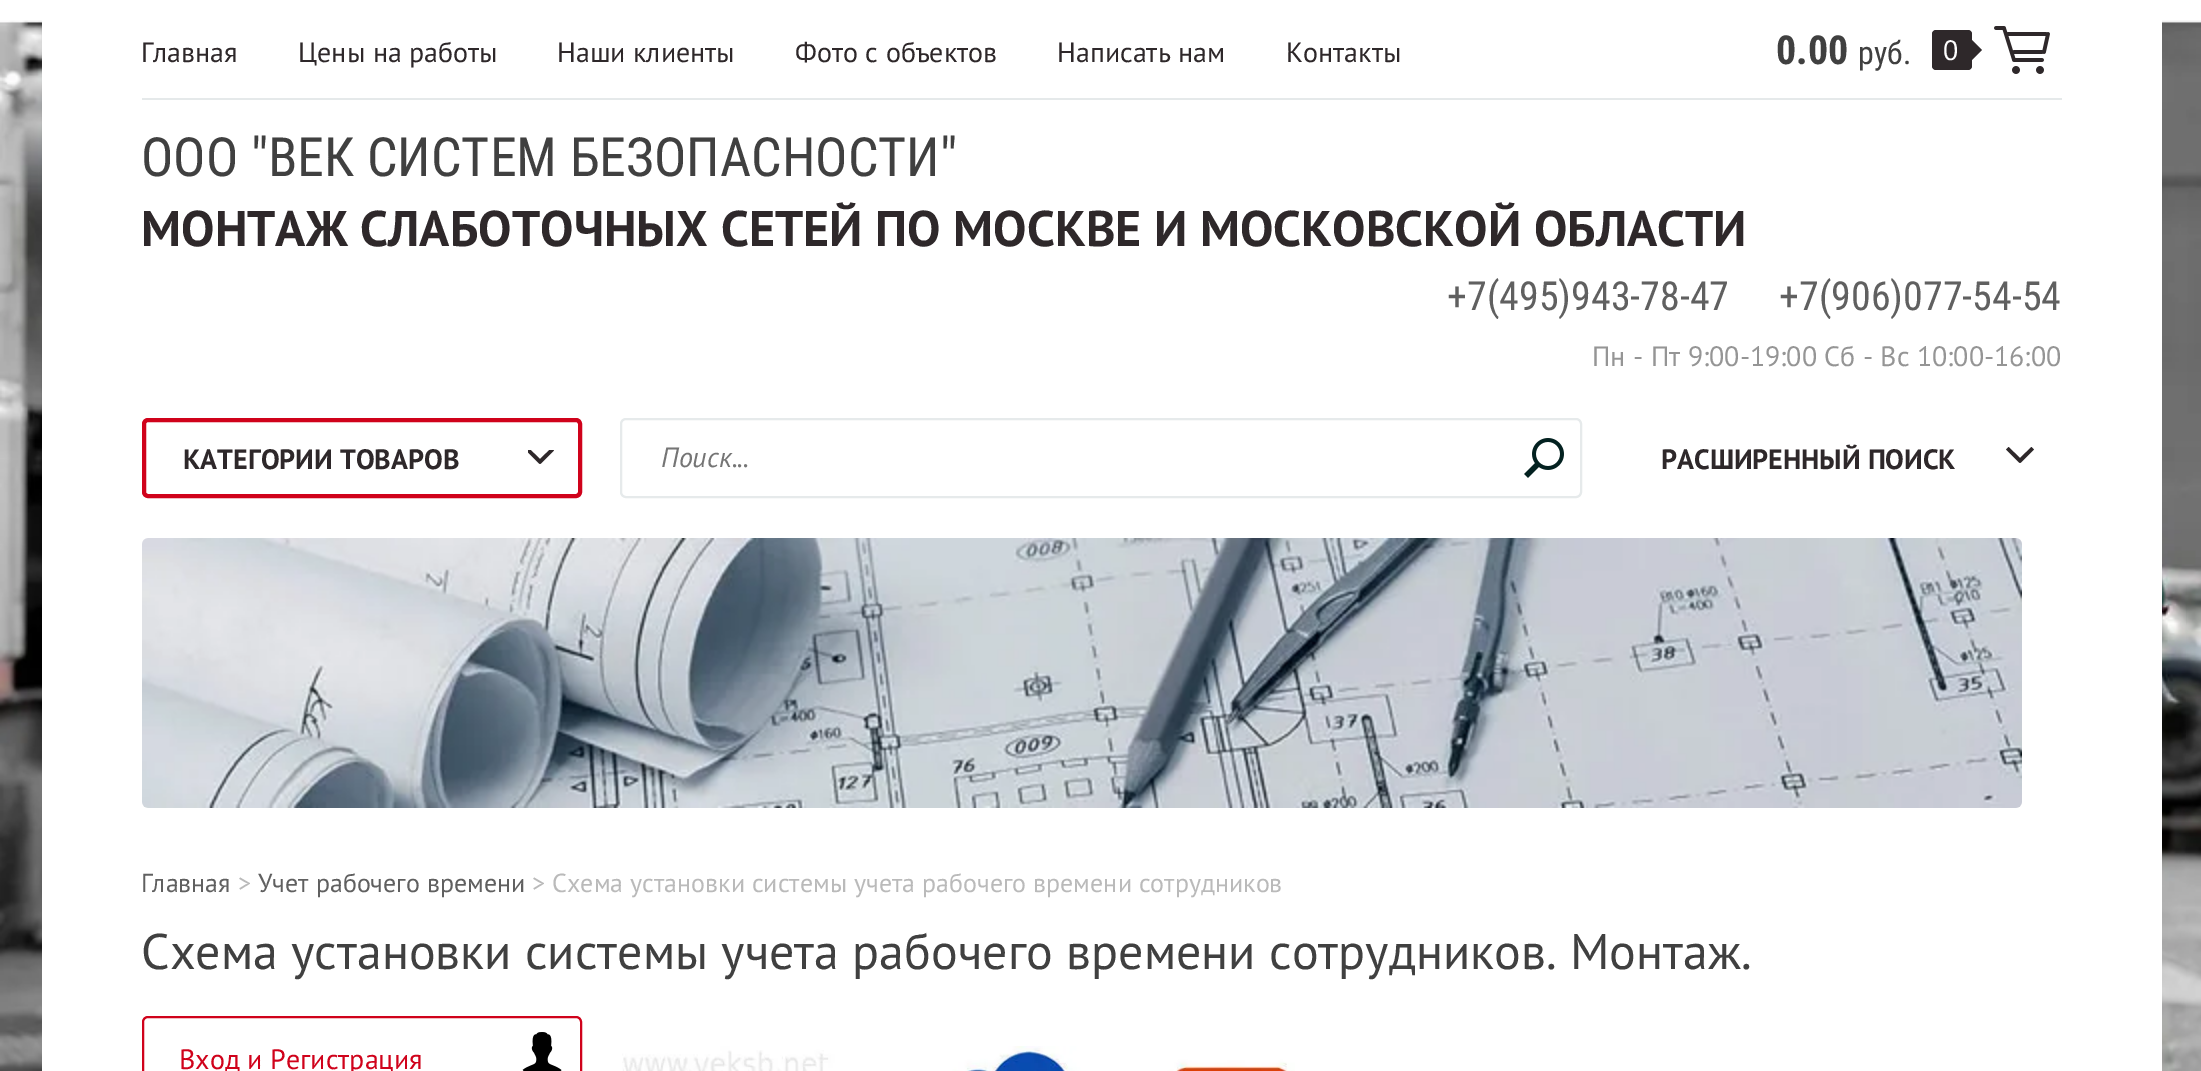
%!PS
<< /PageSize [2201 1071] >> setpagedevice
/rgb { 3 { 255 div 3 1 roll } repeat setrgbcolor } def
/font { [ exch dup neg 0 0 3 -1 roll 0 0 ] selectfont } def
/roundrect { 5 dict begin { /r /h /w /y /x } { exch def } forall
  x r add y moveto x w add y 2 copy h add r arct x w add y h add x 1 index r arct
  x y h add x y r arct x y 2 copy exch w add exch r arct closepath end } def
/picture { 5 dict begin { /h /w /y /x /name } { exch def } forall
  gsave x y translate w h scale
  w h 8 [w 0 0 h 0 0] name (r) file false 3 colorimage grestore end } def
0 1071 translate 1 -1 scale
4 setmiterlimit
255 255 255 rgb
0 0 2201 1071 rectfill
(img/1.rgb) 0 20 2201 1051 picture
42 20 2120 1051 rectfill
229 233 234 rgb
142 98 1920 2 rectfill
46 40 42 rgb
1932 30 40 40 4 roundrect fill
1972 60 moveto 1972 40 lineto 1982 50 lineto closepath fill
(img/2.rgb) 1994 26 56 48 picture
208 2 27 rgb
4 setlinewidth
144 420 436 76 4 roundrect stroke
gsave
528 450 28 16 rectclip
46 40 42 rgb
526 450.5 moveto 528.5 448 lineto 540 459 lineto 551.5 448 lineto 554 450.5 lineto 540.5 464 lineto 540 463.5 lineto 539.5 464 lineto closepath eofill
grestore
230 234 235 rgb
2 setlinewidth
621 419 960 78 5 roundrect stroke
(img/3.rgb) 1524 438 40 40 picture
46 40 42 rgb
2006 449.5 moveto 2008.5 447 lineto 2020 458 lineto 2031.5 447 lineto 2034 449.5 lineto 2020.5 463 lineto 2020 462.5 lineto 2019.5 463 lineto closepath eofill
(img/4.rgb) 142 538 1880 270 picture
208 2 27 rgb
143 1017 438 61 5 roundrect stroke
(img/5.rgb) 522 1032 40 39 picture
(img/6.rgb) 622 1046 673 25 picture
/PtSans-Regular 28 font
46 40 42 rgb
[
  [(Главная) 141 62]
  [(Цены на работы) 298 62]
  [(Наши клиенты) 557 62]
  [(Фото с объектов) 795 62]
  [(Написать нам) 1057 62]
  [(Контакты) 1286 62]
] { aload pop moveto show } forall
/RobotoCondensed-Bold 40 font
64 64 64 rgb
1776 64 moveto (0.00) show
/RobotoCondensed-Regular 32 font
1858 64 moveto (руб.) show
/PtSans-Regular 28 font
255 255 255 rgb
1943 60 moveto (0) show
/RobotoCondensed-Regular 54 font
64 64 64 rgb
141 176 moveto (ООО "ВЕК СИСТЕМ БЕЗОПАСНОСТИ") show
/PtSans-Bold 50 font
46 40 42 rgb
141 246 moveto (МОНТАЖ СЛАБОТОЧНЫХ СЕТЕЙ ПО МОСКВЕ И МОСКОВСКОЙ ОБЛАСТИ) show
/RobotoCondensed-Regular 40 font
96 96 96 rgb
1447 310 moveto (+7\(495\)943-78-47) show
1779 310 moveto (+7\(906\)077-54-54) show
/PtSans-Regular 28 font
149 149 149 rgb
1592 366 moveto (Пн - Пт 9:00-19:00 Сб - Вс 10:00-16:00) show
/PtSans-Bold 28 font
46 40 42 rgb
183 469 moveto (КАТЕГОРИИ ТОВАРОВ) show
/PtSans-Italic 28 font
117 117 117 rgb
661 467 moveto (Поиск...) show
/PtSans-Bold 28 font
46 40 42 rgb
1661 469 moveto (РАСШИРЕННЫЙ ПОИСК) show
/PtSans-Regular 26 font
96 96 96 rgb
141 892 moveto (Главная) show
186 186 186 rgb
238 892 moveto (>) show
96 96 96 rgb
258 892 moveto (Учет рабочего времени) show
186 186 186 rgb
532 892 moveto (> Схема установки системы учета рабочего времени сотрудников) show
/PtSans-Regular 50 font
64 64 64 rgb
141 969 moveto (Схема установки системы учета рабочего времени сотрудников. Монтаж.) show
/PtSans-Regular 28 font
208 2 27 rgb
179 1069 moveto (Вход и Регистрация) show
showpage
